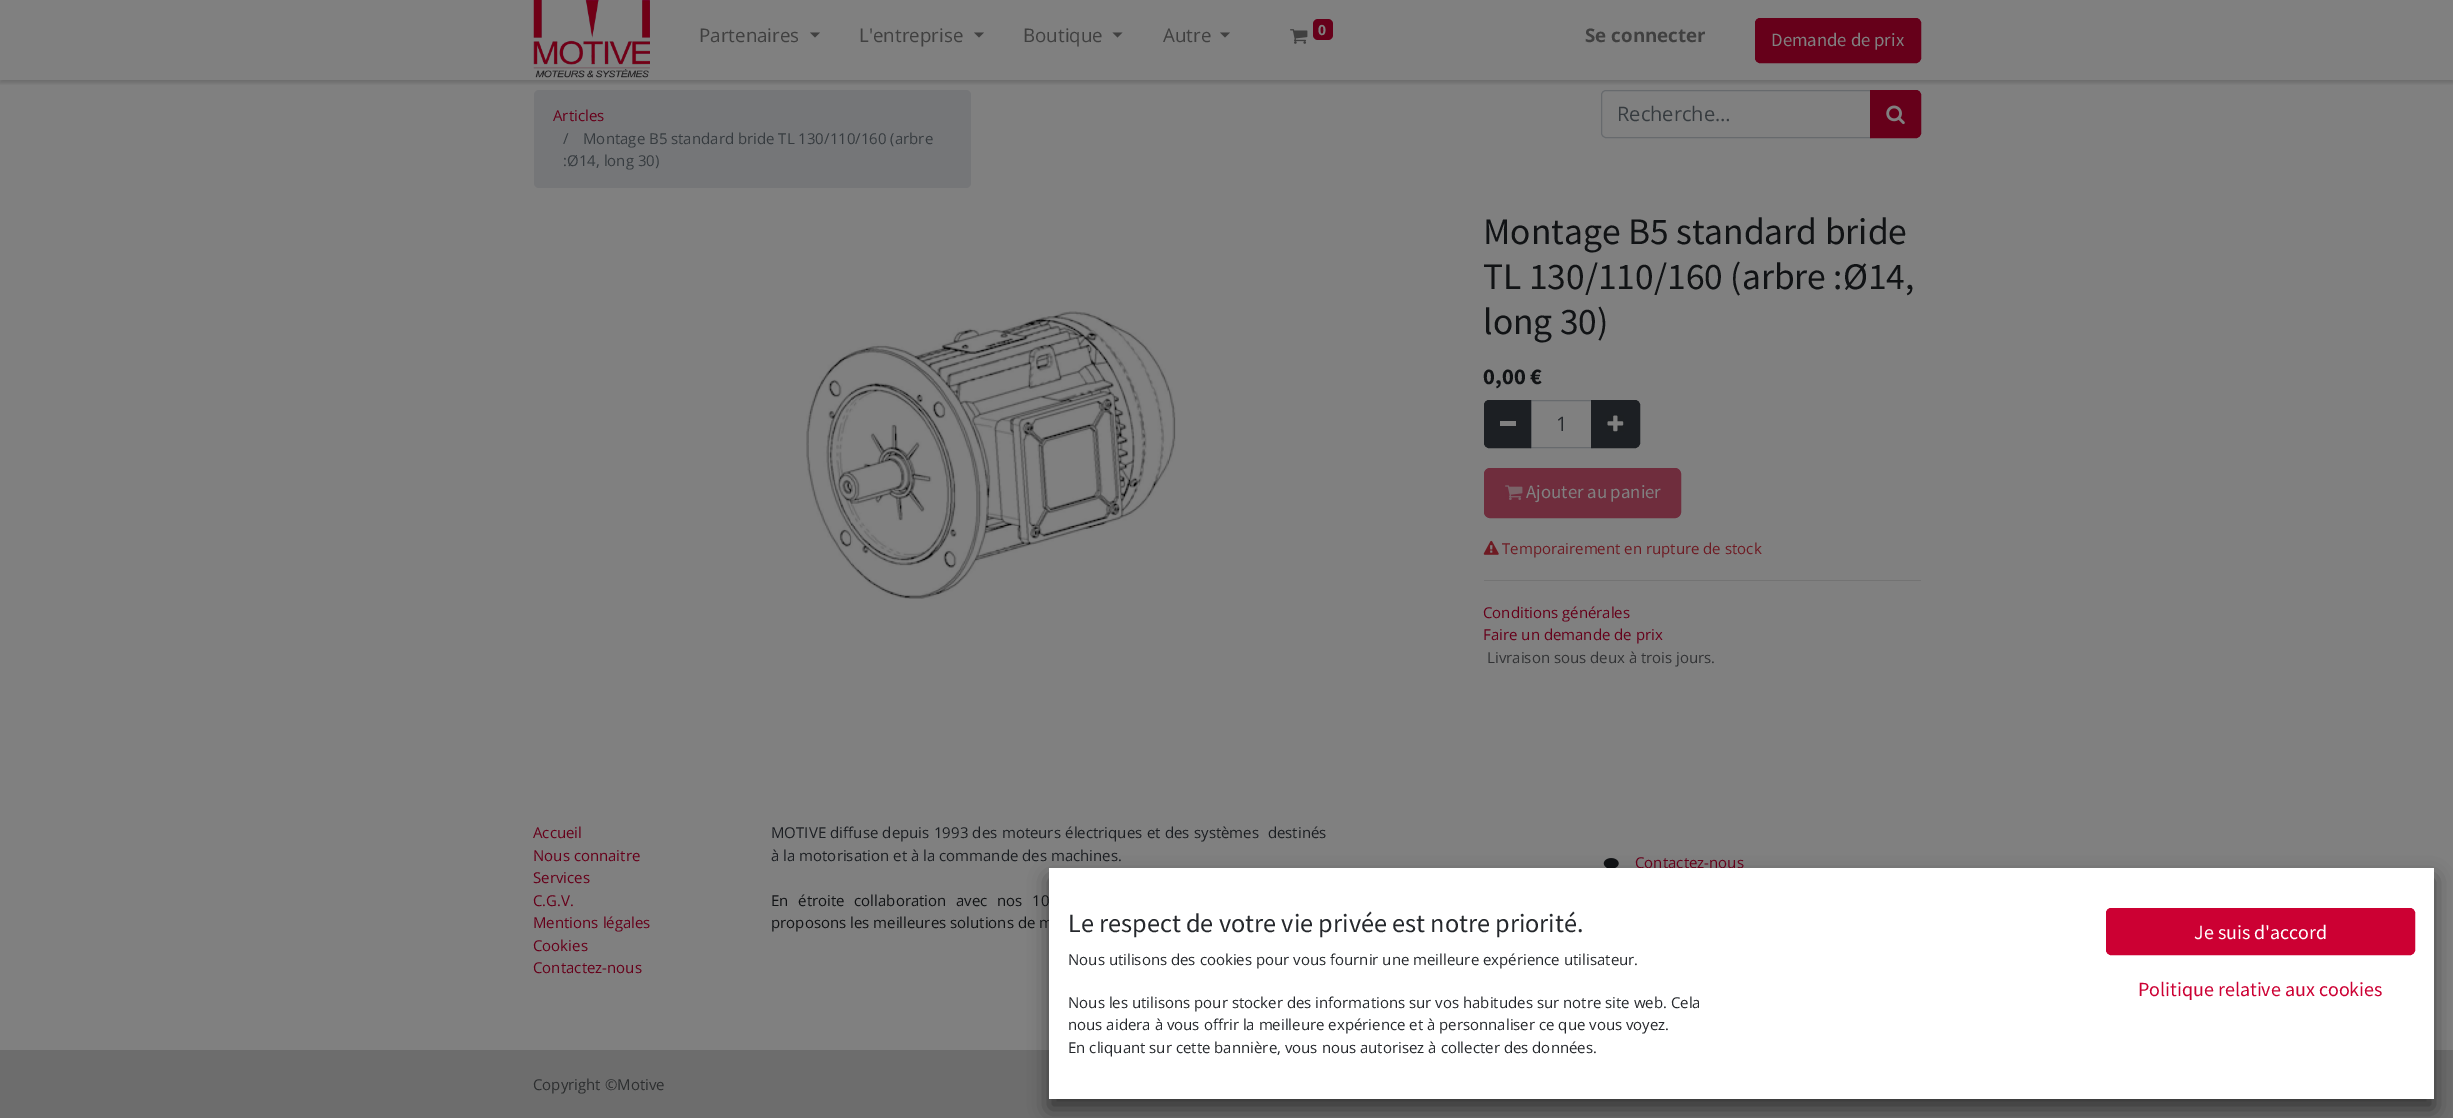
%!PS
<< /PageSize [2453 1118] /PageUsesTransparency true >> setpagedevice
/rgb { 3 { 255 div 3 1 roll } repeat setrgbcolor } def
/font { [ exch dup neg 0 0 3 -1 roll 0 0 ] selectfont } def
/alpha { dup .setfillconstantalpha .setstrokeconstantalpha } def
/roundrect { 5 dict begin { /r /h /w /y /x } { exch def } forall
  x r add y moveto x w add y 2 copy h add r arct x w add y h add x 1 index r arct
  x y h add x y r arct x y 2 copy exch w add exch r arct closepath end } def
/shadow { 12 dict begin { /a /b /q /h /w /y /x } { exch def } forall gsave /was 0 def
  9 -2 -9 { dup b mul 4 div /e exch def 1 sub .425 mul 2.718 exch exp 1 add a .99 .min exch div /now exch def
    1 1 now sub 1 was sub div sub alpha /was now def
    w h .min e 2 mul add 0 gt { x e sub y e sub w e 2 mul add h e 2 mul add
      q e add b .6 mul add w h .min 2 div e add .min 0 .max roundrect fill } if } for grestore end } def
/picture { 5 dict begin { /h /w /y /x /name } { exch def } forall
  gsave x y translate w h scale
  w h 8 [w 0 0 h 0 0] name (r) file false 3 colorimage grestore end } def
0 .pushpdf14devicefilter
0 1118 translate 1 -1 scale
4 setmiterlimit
128 128 128 rgb
0 0 2453 1118 rectfill
gsave
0 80 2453 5 rectclip
0 0 0 rgb
0 3 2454 80 0 2 0.15 shadow
grestore
(img/1.rgb) 533 0 117 78 picture
64 64 64 rgb
810 32.5 moveto 820 32.5 lineto 815 37.5 lineto closepath fill
974 32.5 moveto 984 32.5 lineto 979 37.5 lineto closepath fill
1112.5 32.5 moveto 1122.5 32.5 lineto 1117.5 37.5 lineto closepath fill
1220 32.5 moveto 1230 32.5 lineto 1225 37.5 lineto closepath fill
(img/2.rgb) 1290 29 18 15 picture
102 0 26 rgb
1313 19 20 21 5 roundrect fill
1755.5 18.5 165 44 4.5 roundrect gsave fill grestore
stroke
117 118 120 rgb
534 90 437 98 5 roundrect fill
103 106 109 rgb
1606 90.5 moveto 1870.5 90.5 lineto 1870.5 137.5 lineto 1606 137.5 lineto 1603.5 137.5 1601.5 135.5 1601.5 133 curveto 1601.5 95 lineto 1601.5 92.5 1603.5 90.5 1606 90.5 curveto closepath stroke
102 0 26 rgb
1870.5 90.5 moveto 1916 90.5 lineto 1918.5 90.5 1920.5 92.5 1920.5 95 curveto 1920.5 133 lineto 1920.5 135.5 1918.5 137.5 1916 137.5 curveto 1870.5 137.5 lineto closepath gsave fill grestore
stroke
(img/3.rgb) 1886 105 19 20 picture
(img/4.rgb) 806 311 370 288 picture
103 106 109 rgb
1530.5 400.5 62 47 rectstroke
28 31 35 rgb
1489 400.5 moveto 1530.5 400.5 lineto 1530.5 447.5 lineto 1489 447.5 lineto 1486.5 447.5 1484.5 445.5 1484.5 443 curveto 1484.5 405 lineto 1484.5 402.5 1486.5 400.5 1489 400.5 curveto closepath gsave fill grestore
stroke
128 128 128 rgb
1500 421 16 5 rectfill
28 31 35 rgb
1591.5 400.5 moveto 1635 400.5 lineto 1637.5 400.5 1639.5 402.5 1639.5 405 curveto 1639.5 443 lineto 1639.5 445.5 1637.5 447.5 1635 447.5 curveto 1591.5 447.5 lineto closepath gsave fill grestore
stroke
(img/5.rgb) 1607 415 17 17 picture
111 45 61 rgb
1484.5 468.5 196 49 5.5 roundrect gsave fill grestore
stroke
(img/6.rgb) 1505 485 18 15 picture
(img/7.rgb) 1483 540 16 15 picture
115 115 115 rgb
1484 580 437 1 rectfill
(img/8.rgb) 1603 858 16 10 picture
109 109 109 rgb
0 1050 2453 68 rectfill
0 0 0 rgb
1049 878 1385 231 0 10 0.5 shadow
/OpenSans-Regular 18.75 font
64 64 64 rgb
[
  [(Partenaires) 699 42]
  [(L'entreprise) 859 42]
  [(Boutique) 1023 42]
  [(Autre) 1163 42]
] { aload pop moveto show } forall
/OpenSans-Bold 14 font
128 128 128 rgb
1318 35 moveto (0) show
/OpenSans-Bold 18.75 font
64 64 64 rgb
1585 42 moveto (Se connecter) show
/SourceSansPro-Regular 18.75 font
128 128 128 rgb
1771 46 moveto (Demande de prix) show
/OpenSans-Regular 15 font
102 0 26 rgb
553 121 moveto (Articles) show
54 59 63 rgb
[
  [(/) 563 144]
  [(Montage B5 standard bride TL 130/110/160 \(arbre) 583 144]
  [(:Ø14, long 30\)) 563 166]
] { aload pop moveto show } forall
/OpenSans-Regular 20 font
1617 121 moveto (Recherche…) show
/SourceSansPro-Regular 37.5 font
17 19 21 rgb
[
  [(Montage B5 standard bride) 1483 244]
  [(TL 130/110/160 \(arbre :Ø14,) 1483 289]
  [(long 30\)) 1483 334]
] { aload pop moveto show } forall
/SourceSansPro-Bold 22.5 font
1483 384 moveto (0,00 €) show
/OpenSans-Regular 20 font
37 40 44 rgb
1556 431 moveto (1) show
/SourceSansPro-Regular 18.75 font
128 128 128 rgb
1526 498 moveto (Ajouter au panier) show
/OpenSans-Regular 15 font
110 27 35 rgb
1502 554 moveto (Temporairement en rupture de stock) show
102 0 26 rgb
1483 618 moveto (Conditions générales) show
1483 640 moveto (Faire un demande de prix) show
50 51 53 rgb
1487 663 moveto (Livraison sous deux à trois jours.) show
102 0 26 rgb
[
  [(Accueil) 533 838]
  [(Nous connaitre) 533 861]
  [(Services) 533 883]
  [(C.G.V.) 533 906]
  [(Mentions légales) 533 928]
  [(Cookies) 533 951]
  [(Contactez-nous) 533 973]
] { aload pop moveto show } forall
28 31 35 rgb
771 838 moveto 0.5 0 32 (MOTIVE diffuse depuis 1993 des moteurs électriques et des systèmes  destinés) widthshow
771 861 moveto (à la motorisation et à la commande des machines.) show
17 19 21 rgb
771 906 moveto 5.75 0 32 (En étroite collaboration avec nos 10) widthshow
771 928 moveto (proposons les meilleures solutions de m) show
102 0 26 rgb
1635 868 moveto (Contactez-nous) show
44 46 47 rgb
533 1090 moveto (Copyright ©Motive) show
255 255 255 rgb
1049 868 1385 231 rectfill
/SourceSansPro-Regular 26.25 font
37 40 44 rgb
1068 932 moveto (Le respect de votre vie privée est notre priorité.) show
/OpenSans-Regular 15 font
[
  [(Nous utilisons des cookies pour vous fournir une meilleure expérience utilisateur.) 1068 965]
  [(Nous les utilisons pour stocker des informations sur vos habitudes sur notre site web. Cela) 1068 1008]
  [(nous aidera à vous offrir la meilleure expérience et à personnaliser ce que vous voyez.) 1068 1030]
  [(En cliquant sur cette bannière, vous nous autorisez à collecter des données.) 1068 1053]
] { aload pop moveto show } forall
204 0 51 rgb
2106.5 908.5 308 46 4.5 roundrect gsave fill grestore
stroke
/SourceSansPro-Regular 20 font
255 255 255 rgb
2194 939 moveto (Je suis d'accord) show
204 0 51 rgb
2138 996 moveto (Politique relative aux cookies) show
.poppdf14devicefilter showpage
